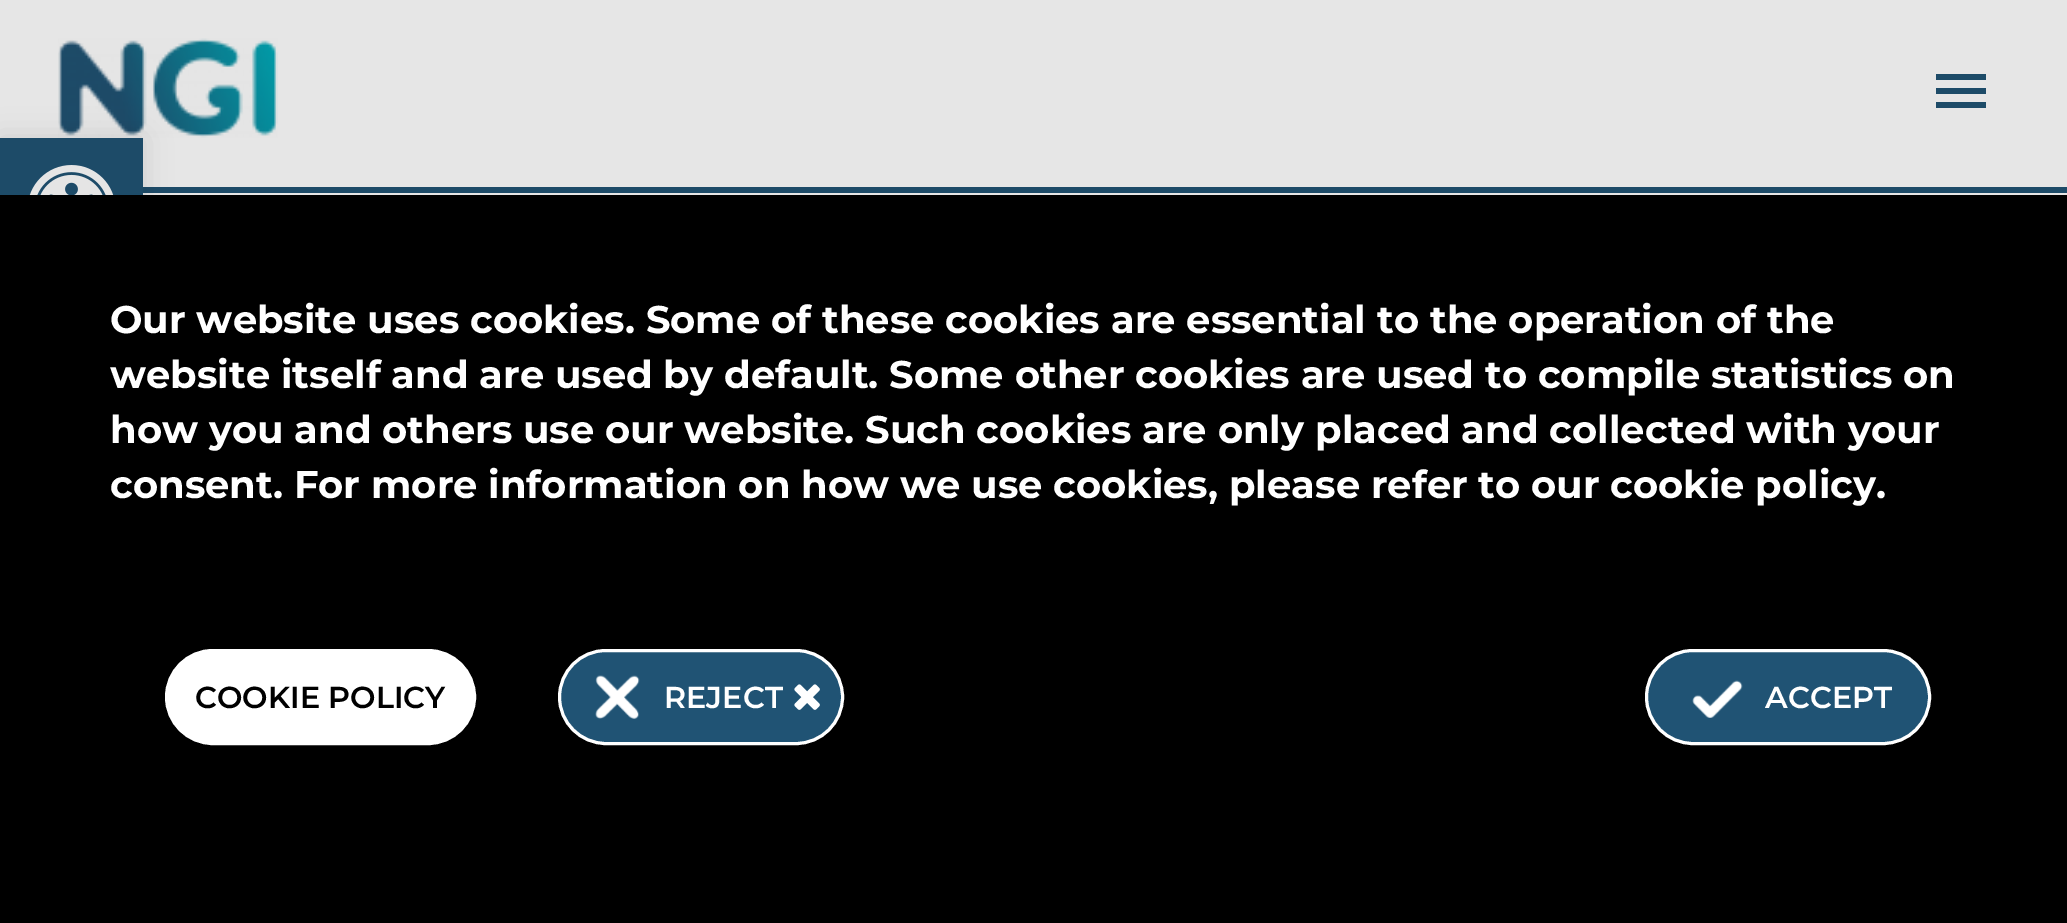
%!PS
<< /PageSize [2067 923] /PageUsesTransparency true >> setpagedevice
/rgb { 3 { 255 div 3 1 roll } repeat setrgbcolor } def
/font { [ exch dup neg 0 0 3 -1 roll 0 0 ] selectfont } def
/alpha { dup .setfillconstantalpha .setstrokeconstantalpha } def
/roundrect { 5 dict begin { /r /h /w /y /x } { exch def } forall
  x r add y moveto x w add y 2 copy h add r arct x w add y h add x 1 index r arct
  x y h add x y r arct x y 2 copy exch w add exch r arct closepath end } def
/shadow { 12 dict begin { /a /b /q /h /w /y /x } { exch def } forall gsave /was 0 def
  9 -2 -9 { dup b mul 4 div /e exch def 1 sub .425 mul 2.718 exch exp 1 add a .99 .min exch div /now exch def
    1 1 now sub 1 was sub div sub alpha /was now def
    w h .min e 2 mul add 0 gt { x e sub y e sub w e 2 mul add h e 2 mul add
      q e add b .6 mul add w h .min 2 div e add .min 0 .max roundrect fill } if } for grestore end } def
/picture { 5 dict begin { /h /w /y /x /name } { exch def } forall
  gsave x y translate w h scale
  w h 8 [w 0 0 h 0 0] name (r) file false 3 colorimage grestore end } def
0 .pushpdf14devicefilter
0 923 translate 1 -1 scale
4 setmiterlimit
230 230 230 rgb
0 0 2067 923 rectfill
29 75 104 rgb
143 187 1924 6 rectfill
(img/1.rgb) 58 38 220 100 picture
[
  [1936 74 50 6 29 75 104]
  [1936 88 50 6 29 75 104]
  [1936 102 50 6 29 75 104]
] { aload pop rgb rectfill } forall
0 0 0 rgb
0 138 143 143 0 14 0.1 shadow
29 75 104 rgb
0 138 143 57 rectfill
(img/2.rgb) 29 165 85 30 picture
0 0 0 rgb
0 195 2067 728 rectfill
255 255 255 rgb
166.5 650.5 308 93 46.5 roundrect gsave fill grestore
3 setlinewidth
stroke
32 83 116 rgb
559.5 650.5 283 93 46.5 roundrect gsave fill grestore
255 255 255 rgb
stroke
(img/3.rgb) 595 675 45 44 picture
(img/4.rgb) 794 684 26 26 picture
32 83 116 rgb
1646.5 650.5 283 93 46.5 roundrect gsave fill grestore
255 255 255 rgb
stroke
(img/5.rgb) 1692 680 51 38 picture
/Montserrat-Bold 38.5 font
[
  [(Our website uses cookies. Some of these cookies are essential to the operation of the) 110 333]
  [(website itself and are used by default. Some other cookies are used to compile statistics on) 110 388]
  [(how you and others use our website. Such cookies are only placed and collected with your) 110 443]
  [(consent. For more information on how we use cookies, please refer to our cookie policy.) 110 498]
] { aload pop moveto show } forall
/Montserrat-SemiBold 30.25 font
0 0 0 rgb
195 708 moveto (COOKIE POLICY) show
255 255 255 rgb
664 708 moveto (REJECT) show
1765 708 moveto (ACCEPT) show
.poppdf14devicefilter showpage
